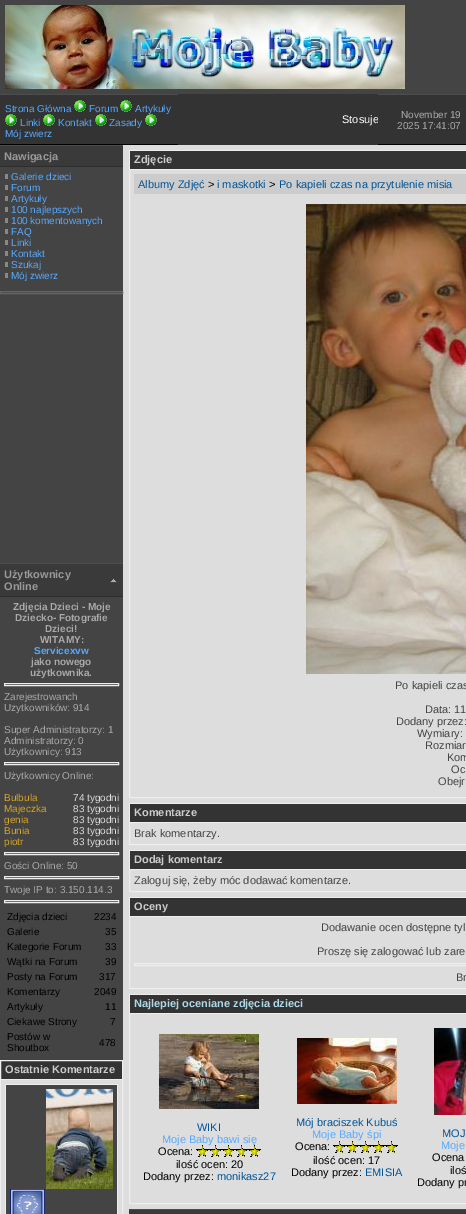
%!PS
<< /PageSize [466 1214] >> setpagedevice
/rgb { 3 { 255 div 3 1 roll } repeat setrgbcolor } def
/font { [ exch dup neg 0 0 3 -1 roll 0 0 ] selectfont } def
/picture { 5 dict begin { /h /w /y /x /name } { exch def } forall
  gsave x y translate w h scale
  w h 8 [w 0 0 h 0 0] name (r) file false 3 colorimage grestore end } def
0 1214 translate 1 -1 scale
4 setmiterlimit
51 51 51 rgb
0 0 466 1214 rectfill
68 68 68 rgb
0 0 466 94 rectfill
(img/1.rgb) 5 5 400 84 picture
77 77 77 rgb
0 94 178 1 rectfill
0 0 0 rgb
0 144 178 1 rectfill
(img/2.rgb) 74 100 12 12 picture
(img/2.rgb) 120 100 12 12 picture
(img/2.rgb) 5 114 12 12 picture
(img/2.rgb) 43 114 12 12 picture
(img/2.rgb) 95 114 12 12 picture
[
  [378 94 88 1 77 77 77]
  [378 144 88 1 0 0 0]
  [0 167 123 893 68 68 68]
  [123 145 343 1069 221 221 221]
  [0 146 123 20 58 58 58]
  [0 145 123 1 77 77 77]
  [0 166 123 1 45 45 45]
  [5 174 3 5 136 136 136]
  [5 185 3 5 136 136 136]
  [5 196 3 5 136 136 136]
  [5 207 3 5 136 136 136]
  [5 218 3 5 136 136 136]
  [5 229 3 5 136 136 136]
  [5 240 3 5 136 136 136]
  [5 251 3 5 136 136 136]
  [5 262 3 5 136 136 136]
  [5 273 3 5 136 136 136]
] { aload pop rgb rectfill } forall
102 102 102 rgb
0.5 291.5 122 2 rectstroke
[
  [0 564 123 32 58 58 58]
  [0 563 123 1 77 77 77]
  [0 596 123 1 45 45 45]
] { aload pop rgb rectfill } forall
(img/4.rgb) 109 578 9 5 picture
238 238 238 rgb
4.5 683.5 114 2 rectstroke
4.5 762.5 114 2 rectstroke
4.5 852.5 114 2 rectstroke
4.5 876.5 114 2 rectstroke
4.5 900.5 114 2 rectstroke
0.5 1060.5 122 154 rectstroke
[
  [1 1079 121 1 238 238 238]
  [1 1080 121 134 221 221 221]
  [5 1084 113 130 238 238 238]
  [6 1085 111 129 68 68 68]
] { aload pop rgb rectfill } forall
(img/5.rgb) 46 1089 67 100 picture
(img/6.rgb) 10 1189 35 25 picture
238 238 238 rgb
129.5 150.5 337 647 rectstroke
[
  [130 151 336 18 51 51 51]
  [130 169 336 1 238 238 238]
  [134 174 332 20 204 204 204]
] { aload pop rgb rectfill } forall
(img/7.rgb) 306 204 160 470 picture
238 238 238 rgb
129.5 803.5 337 41 rectstroke
51 51 51 rgb
130 804 336 18 rectfill
238 238 238 rgb
130 822 336 1 rectfill
129.5 850.5 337 41 rectstroke
51 51 51 rgb
130 851 336 18 rectfill
238 238 238 rgb
130 869 336 1 rectfill
129.5 897.5 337 91 rectstroke
51 51 51 rgb
130 898 336 18 rectfill
238 238 238 rgb
130 916 336 1 rectfill
134.5 963.5 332 2 rectstroke
129.5 994.5 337 209 rectstroke
51 51 51 rgb
130 995 336 18 rectfill
238 238 238 rgb
130 1013 336 1 rectfill
(img/8.rgb) 159 1034 100 75 picture
(img/13.rgb) 297 1038 100 66 picture
(img/11.rgb) 333 1141 13 12 picture
(img/11.rgb) 346 1141 13 12 picture
(img/11.rgb) 359 1141 13 12 picture
(img/11.rgb) 372 1141 13 12 picture
(img/11.rgb) 385 1141 13 12 picture
(img/14.rgb) 434 1028 32 87 picture
58 58 58 rgb
129 1210 337 4 rectfill
77 77 77 rgb
129 1209 337 1 rectfill
/LiberationSans-Regular 10 font
85 170 255 rgb
[
  [(Strona Główna) 5 112]
  [(Forum) 89 112]
  [(Artykuły) 135 112]
  [(Linki) 20 126]
  [(Kontakt) 58 126]
  [(Zasady) 109 126]
] { aload pop moveto show } forall
(img/3.rgb) 145 114 12 12 picture
5 137 moveto (Mój zwierz) show
gsave
178 113 200 14 rectclip
/LiberationSans-Regular 11 font
255 255 255 rgb
342 123 moveto (Stosuje) show
grestore
170 170 170 rgb
401 118 moveto (November 19) show
397 129 moveto (2025 17:41:07) show
/LiberationSans-Bold 11 font
153 153 153 rgb
4 160 moveto (Nawigacja) show
/LiberationSans-Regular 10 font
85 170 255 rgb
[
  [(Galerie dzieci) 11 180]
  [(Forum) 11 191]
  [(Artykuły) 11 202]
  [(100 najlepszych) 11 213]
  [(100 komentowanych) 11 224]
  [(FAQ) 11 235]
  [(Linki) 11 246]
  [(Kontakt) 11 257]
  [(Szukaj) 11 268]
  [(Mój zwierz) 11 279]
] { aload pop moveto show } forall
/LiberationSans-Bold 11 font
153 153 153 rgb
4 578 moveto (Użytkownicy) show
4 590 moveto (Online) show
/LiberationSans-Bold 10 font
170 170 170 rgb
[
  [(Zdjęcia Dzieci - Moje) 13 610]
  [(Dziecko- Fotografie) 15 621]
  [(Dzieci!) 45 632]
  [(WITAMY:) 40 643]
] { aload pop moveto show } forall
85 170 255 rgb
34 654 moveto (Servicexvw) show
170 170 170 rgb
31 665 moveto (jako nowego) show
30 676 moveto (użytkownika.) show
/LiberationSans-Regular 10 font
[
  [(Zarejestrowanch) 4 700]
  [(Uzytkowników: 914) 4 711]
  [(Super Administratorzy: 1) 4 733]
  [(Administratorzy: 0) 4 744]
  [(Użytkownicy: 913) 4 755]
  [(Użytkownicy Online:) 4 779]
] { aload pop moveto show } forall
218 165 32 rgb
4 801 moveto (Bulbula) show
220 220 220 rgb
73 801 moveto (74 tygodni) show
218 165 32 rgb
4 812 moveto (Majeczka) show
220 220 220 rgb
73 812 moveto (83 tygodni) show
218 165 32 rgb
4 823 moveto (genia) show
220 220 220 rgb
73 823 moveto (83 tygodni) show
218 165 32 rgb
4 834 moveto (Bunia) show
220 220 220 rgb
73 834 moveto (83 tygodni) show
218 165 32 rgb
4 845 moveto (piotr) show
220 220 220 rgb
73 845 moveto (83 tygodni) show
170 170 170 rgb
4 869 moveto (Gości Online: 50) show
4 893 moveto (Twoje IP to: 3.150.114.3) show
0 0 0 rgb
[
  [(Zdjęcia dzieci) 7 920]
  [(2234) 94 920]
  [(Galerie) 7 935]
  [(35) 105 935]
  [(Kategorie Forum) 7 950]
  [(33) 105 950]
  [(Wątki na Forum) 7 965]
  [(39) 105 965]
  [(Posty na Forum) 7 980]
  [(317) 99 980]
  [(Komentarzy) 7 995]
  [(2049) 94 995]
  [(Artykuły) 7 1010]
  [(11) 105 1010]
  [(Ciekawe Strony) 7 1025]
  [(7) 110 1025]
  [(Postów w) 7 1040]
  [(Shoutbox) 7 1051]
  [(478) 99 1046]
] { aload pop moveto show } forall
/LiberationSans-Bold 11 font
204 204 204 rgb
5 1073 moveto (Ostatnie Komentarze) show
134 163 moveto (Zdjęcie) show
/LiberationSans-Regular 11 font
0 85 153 rgb
138 188 moveto (Albumy Zdjęć) show
0 0 0 rgb
208 188 moveto (>) show
0 85 153 rgb
217 188 moveto (i maskotki) show
0 0 0 rgb
269 188 moveto (>) show
0 85 153 rgb
279 188 moveto (Po kapieli czas na przytulenie misia) show
68 68 68 rgb
[
  [(Po kapieli czas) 395 689]
  [(Data: 11) 425 713]
  [(Dodany przez:) 396 725]
  [(Wymiary:) 417 737]
  [(Rozmiar) 425 749]
  [(Kom) 447 761]
  [(Oc) 451 773]
  [(Obejr) 438 785]
] { aload pop moveto show } forall
/LiberationSans-Bold 11 font
204 204 204 rgb
134 816 moveto (Komentarze) show
/LiberationSans-Regular 11 font
68 68 68 rgb
134 837 moveto (Brak komentarzy.) show
/LiberationSans-Bold 11 font
204 204 204 rgb
134 863 moveto (Dodaj komentarz) show
/LiberationSans-Regular 11 font
68 68 68 rgb
134 884 moveto (Zaloguj się, żeby móc dodawać komentarze.) show
/LiberationSans-Bold 11 font
204 204 204 rgb
134 910 moveto (Oceny) show
/LiberationSans-Regular 11 font
68 68 68 rgb
[
  [(Dodawanie ocen dostępne tyl) 321 931]
  [(Proszę się zalogować lub zare) 317 955]
  [(Br) 456 981]
] { aload pop moveto show } forall
/LiberationSans-Bold 11 font
173 216 230 rgb
134 1007 moveto (Najlepiej oceniane zdjęcia dzieci) show
/LiberationSans-Regular 11 font
0 85 153 rgb
197 1131 moveto (WIKI) show
85 170 255 rgb
162 1143 moveto (Moje Baby bawi się) show
0 0 0 rgb
158 1155 moveto (Ocena:) show
(img/9.rgb) 196 1145 13 12 picture
(img/10.rgb) 209 1145 13 12 picture
(img/11.rgb) 222 1145 13 12 picture
(img/11.rgb) 235 1145 13 12 picture
(img/12.rgb) 248 1145 13 12 picture
176 1168 moveto (ilość ocen: 20) show
143 1180 moveto (Dodany przez:) show
0 85 153 rgb
217 1180 moveto (monikasz27) show
296 1126 moveto (Mój braciszek Kubuś) show
85 170 255 rgb
312 1138 moveto (Moje Baby śpi) show
0 0 0 rgb
[
  [(Ocena:) 295 1150]
  [(ilość ocen: 17) 313 1164]
  [(Dodany przez:) 291 1176]
] { aload pop moveto show } forall
0 85 153 rgb
365 1176 moveto (EMISIA) show
442 1137 moveto (MOJ) show
85 170 255 rgb
441 1149 moveto (Moje) show
0 0 0 rgb
[
  [(Ocena) 432 1161]
  [(iloś) 450 1174]
  [(Dodany pr) 417 1186]
] { aload pop moveto show } forall
showpage
